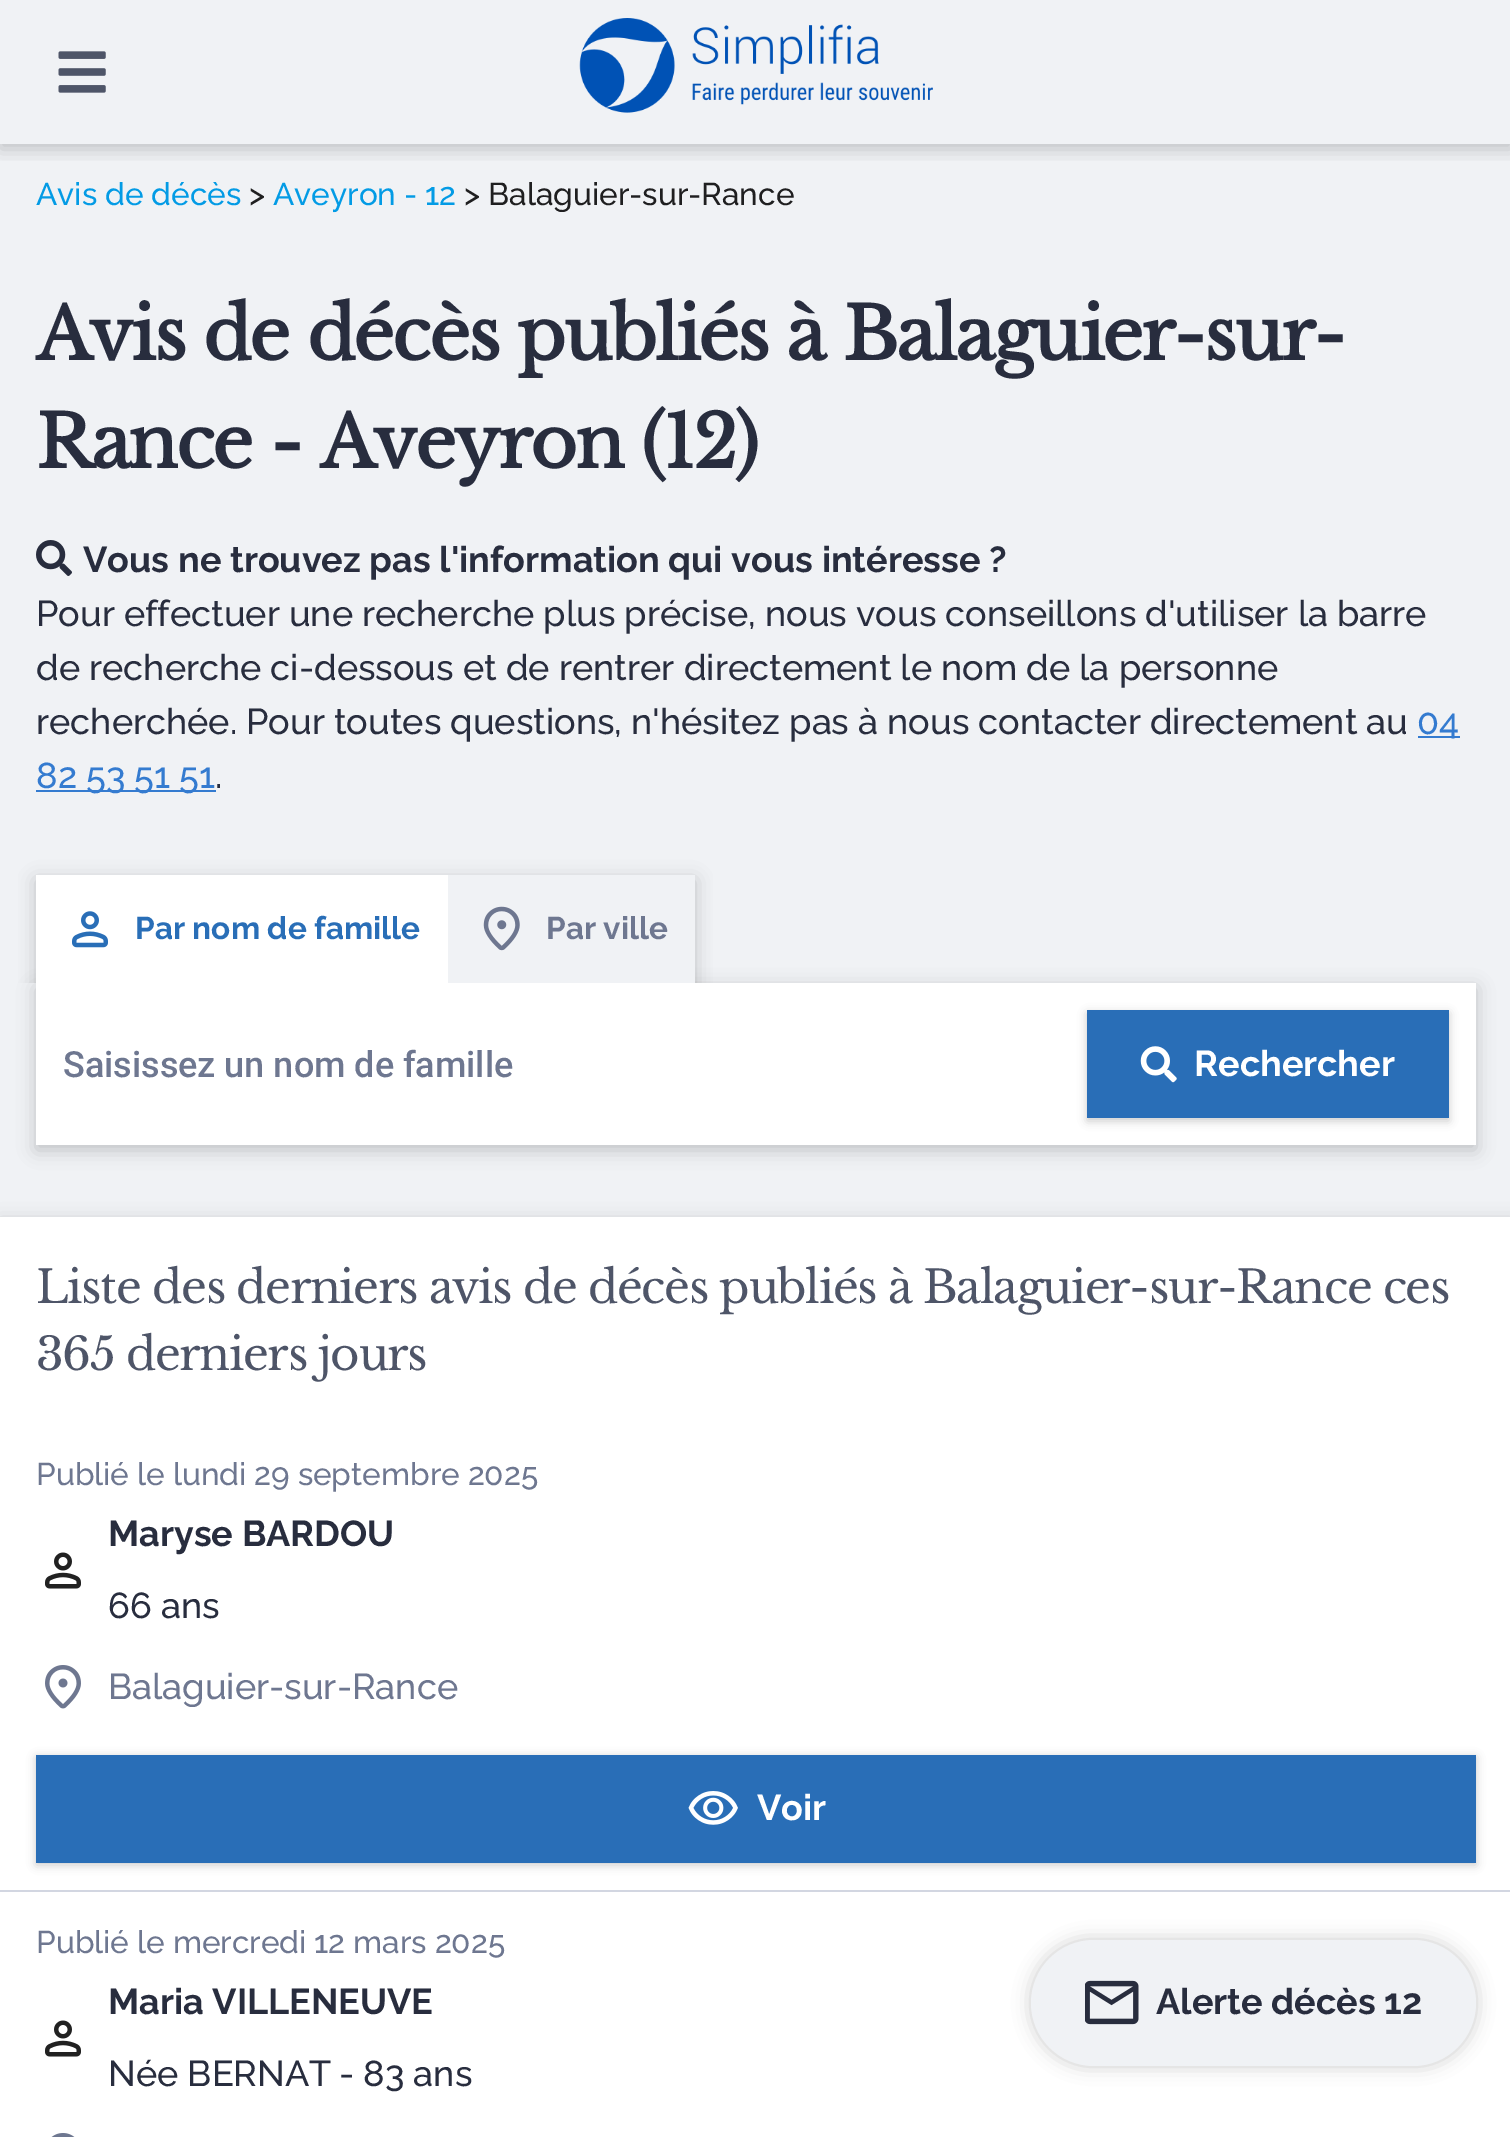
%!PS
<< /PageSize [1510 2137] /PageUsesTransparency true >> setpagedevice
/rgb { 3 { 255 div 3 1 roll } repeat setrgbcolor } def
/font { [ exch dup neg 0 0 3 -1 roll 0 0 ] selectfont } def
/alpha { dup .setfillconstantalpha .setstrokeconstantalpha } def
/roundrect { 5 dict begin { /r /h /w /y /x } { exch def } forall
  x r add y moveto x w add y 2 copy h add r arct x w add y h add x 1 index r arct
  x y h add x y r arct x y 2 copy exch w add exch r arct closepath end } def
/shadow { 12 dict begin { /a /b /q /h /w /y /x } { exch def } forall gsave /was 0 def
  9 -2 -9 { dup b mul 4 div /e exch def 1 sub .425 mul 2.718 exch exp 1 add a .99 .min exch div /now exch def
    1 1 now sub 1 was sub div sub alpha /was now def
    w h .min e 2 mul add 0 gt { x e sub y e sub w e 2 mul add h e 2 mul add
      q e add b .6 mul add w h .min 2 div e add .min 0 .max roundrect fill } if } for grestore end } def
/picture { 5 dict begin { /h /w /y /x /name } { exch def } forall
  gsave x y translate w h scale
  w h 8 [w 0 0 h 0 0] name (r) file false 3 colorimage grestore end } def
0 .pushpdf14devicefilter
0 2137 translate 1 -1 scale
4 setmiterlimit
240 242 245 rgb
0 0 1510 2137 rectfill
gsave
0 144 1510 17 rectclip
0 0 0 rgb
0 5 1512 144 0 9 0.2 shadow
grestore
(img/1.rgb) 58 51 48 42 picture
(img/2.rgb) 579 18 354 95 picture
(img/3.rgb) 36 540 36 36 picture
52 123 208 rgb
1418 736 42 2 rectfill
36 790 180 2 rectfill
0 0 0 rgb
36 988 1440 162 0 9 0.2 shadow
255 255 255 rgb
36 983 1440 162 rectfill
gsave
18 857 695 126 rectclip
0 0 0 rgb
36 880 659 108 0 9 0.2 shadow
grestore
36 875 412 108 rectfill
(img/4.rgb) 72 911 36 37 picture
240 242 245 rgb
448 875 247 108 rectfill
(img/5.rgb) 483 906 37 45 picture
0 0 0 rgb
1087 1013 362 108 0 4.5 0.2 shadow
41 110 183 rgb
1087 1010 362 108 rectfill
(img/6.rgb) 1140 1046 37 37 picture
0 0 0 rgb
0 1222 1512 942 0 9 0.2 shadow
255 255 255 rgb
0 1217 1510 920 rectfill
210 214 225 rgb
0 1890 1510 2 rectfill
(img/7.rgb) 45 1552 36 37 picture
(img/8.rgb) 45 1665 36 44 picture
0 0 0 rgb
36 1757 1440 108 0 4.5 0.2 shadow
41 110 183 rgb
36 1755 1440 108 rectfill
(img/9.rgb) 688 1791 50 34 picture
(img/7.rgb) 45 2020 36 37 picture
(img/10.rgb) 51 2133 24 4 picture
0 0 0 rgb
1031 1940 445 126 63 9 0.2 shadow
240 242 245 rgb
1031 1940 445 126 63 roundrect fill
(img/11.rgb) 1085 1980 54 45 picture
/Raleway-Medium 31.5 font
3 155 229 rgb
36 205 moveto (Avis de décès) show
31 31 32 rgb
249 205 moveto (>) show
3 155 229 rgb
273 205 moveto (Aveyron - 12) show
31 31 32 rgb
464 205 moveto (> Balaguier-sur-Rance) show
/LibreBaskerville-Bold 72 font
40 45 62 rgb
36 360 moveto -2.15 0 (Avis de décès publiés à Balaguier-sur-) ashow
36 468 moveto -2.15 0 (Rance - Aveyron \(12\)) ashow
/Raleway-Bold 36 font
83 572 moveto (Vous ne trouvez pas l'information qui vous intéresse ?) show
/Raleway-Medium 36 font
[
  [(Pour effectuer une recherche plus précise, nous vous conseillons d'utiliser la barre) 36 626]
  [(de recherche ci-dessous et de rentrer directement le nom de la personne) 36 680]
  [(recherchée. Pour toutes questions, n'hésitez pas à nous contacter directement au) 36 734]
] { aload pop moveto show } forall
52 123 208 rgb
1417 734 moveto (04) show
36 788 moveto (82 53 51 51) show
40 45 62 rgb
215 788 moveto (.) show
/Raleway-Bold 31.5 font
41 110 183 rgb
135 939 moveto (Par nom de famille) show
110 119 144 rgb
546 939 moveto (Par ville) show
/Roboto-Medium 36 font
63 1077 moveto (Saisissez un nom de famille) show
/Raleway-Bold 36 font
255 255 255 rgb
1194 1076 moveto (Rechercher) show
/LibreBaskerville-Regular 45 font
78 85 104 rgb
36 1303 moveto -1.35 0 (Liste des derniers avis de décès publiés à Balaguier-sur-Rance ces) ashow
36 1370 moveto -1.35 0 (365 derniers jours) ashow
/Raleway-Medium 31.5 font
110 119 144 rgb
36 1485 moveto (Publié le lundi 29 septembre 2025) show
/Raleway-Bold 36 font
40 45 62 rgb
108 1546 moveto (Maryse BARDOU) show
/Raleway-Medium 36 font
108 1618 moveto (66 ans) show
110 119 144 rgb
108 1699 moveto (Balaguier-sur-Rance) show
/Raleway-Bold 36 font
255 255 255 rgb
757 1820 moveto (Voir) show
/Raleway-Medium 31.5 font
110 119 144 rgb
36 1953 moveto (Publié le mercredi 12 mars 2025) show
/Raleway-Bold 36 font
40 45 62 rgb
108 2014 moveto (Maria VILLENEUVE) show
/Raleway-Medium 36 font
108 2086 moveto (Née BERNAT) show
339 2086 moveto (- 83 ans) show
/Raleway-Bold 36 font
1156 2014 moveto (Alerte décès 12) show
.poppdf14devicefilter showpage
